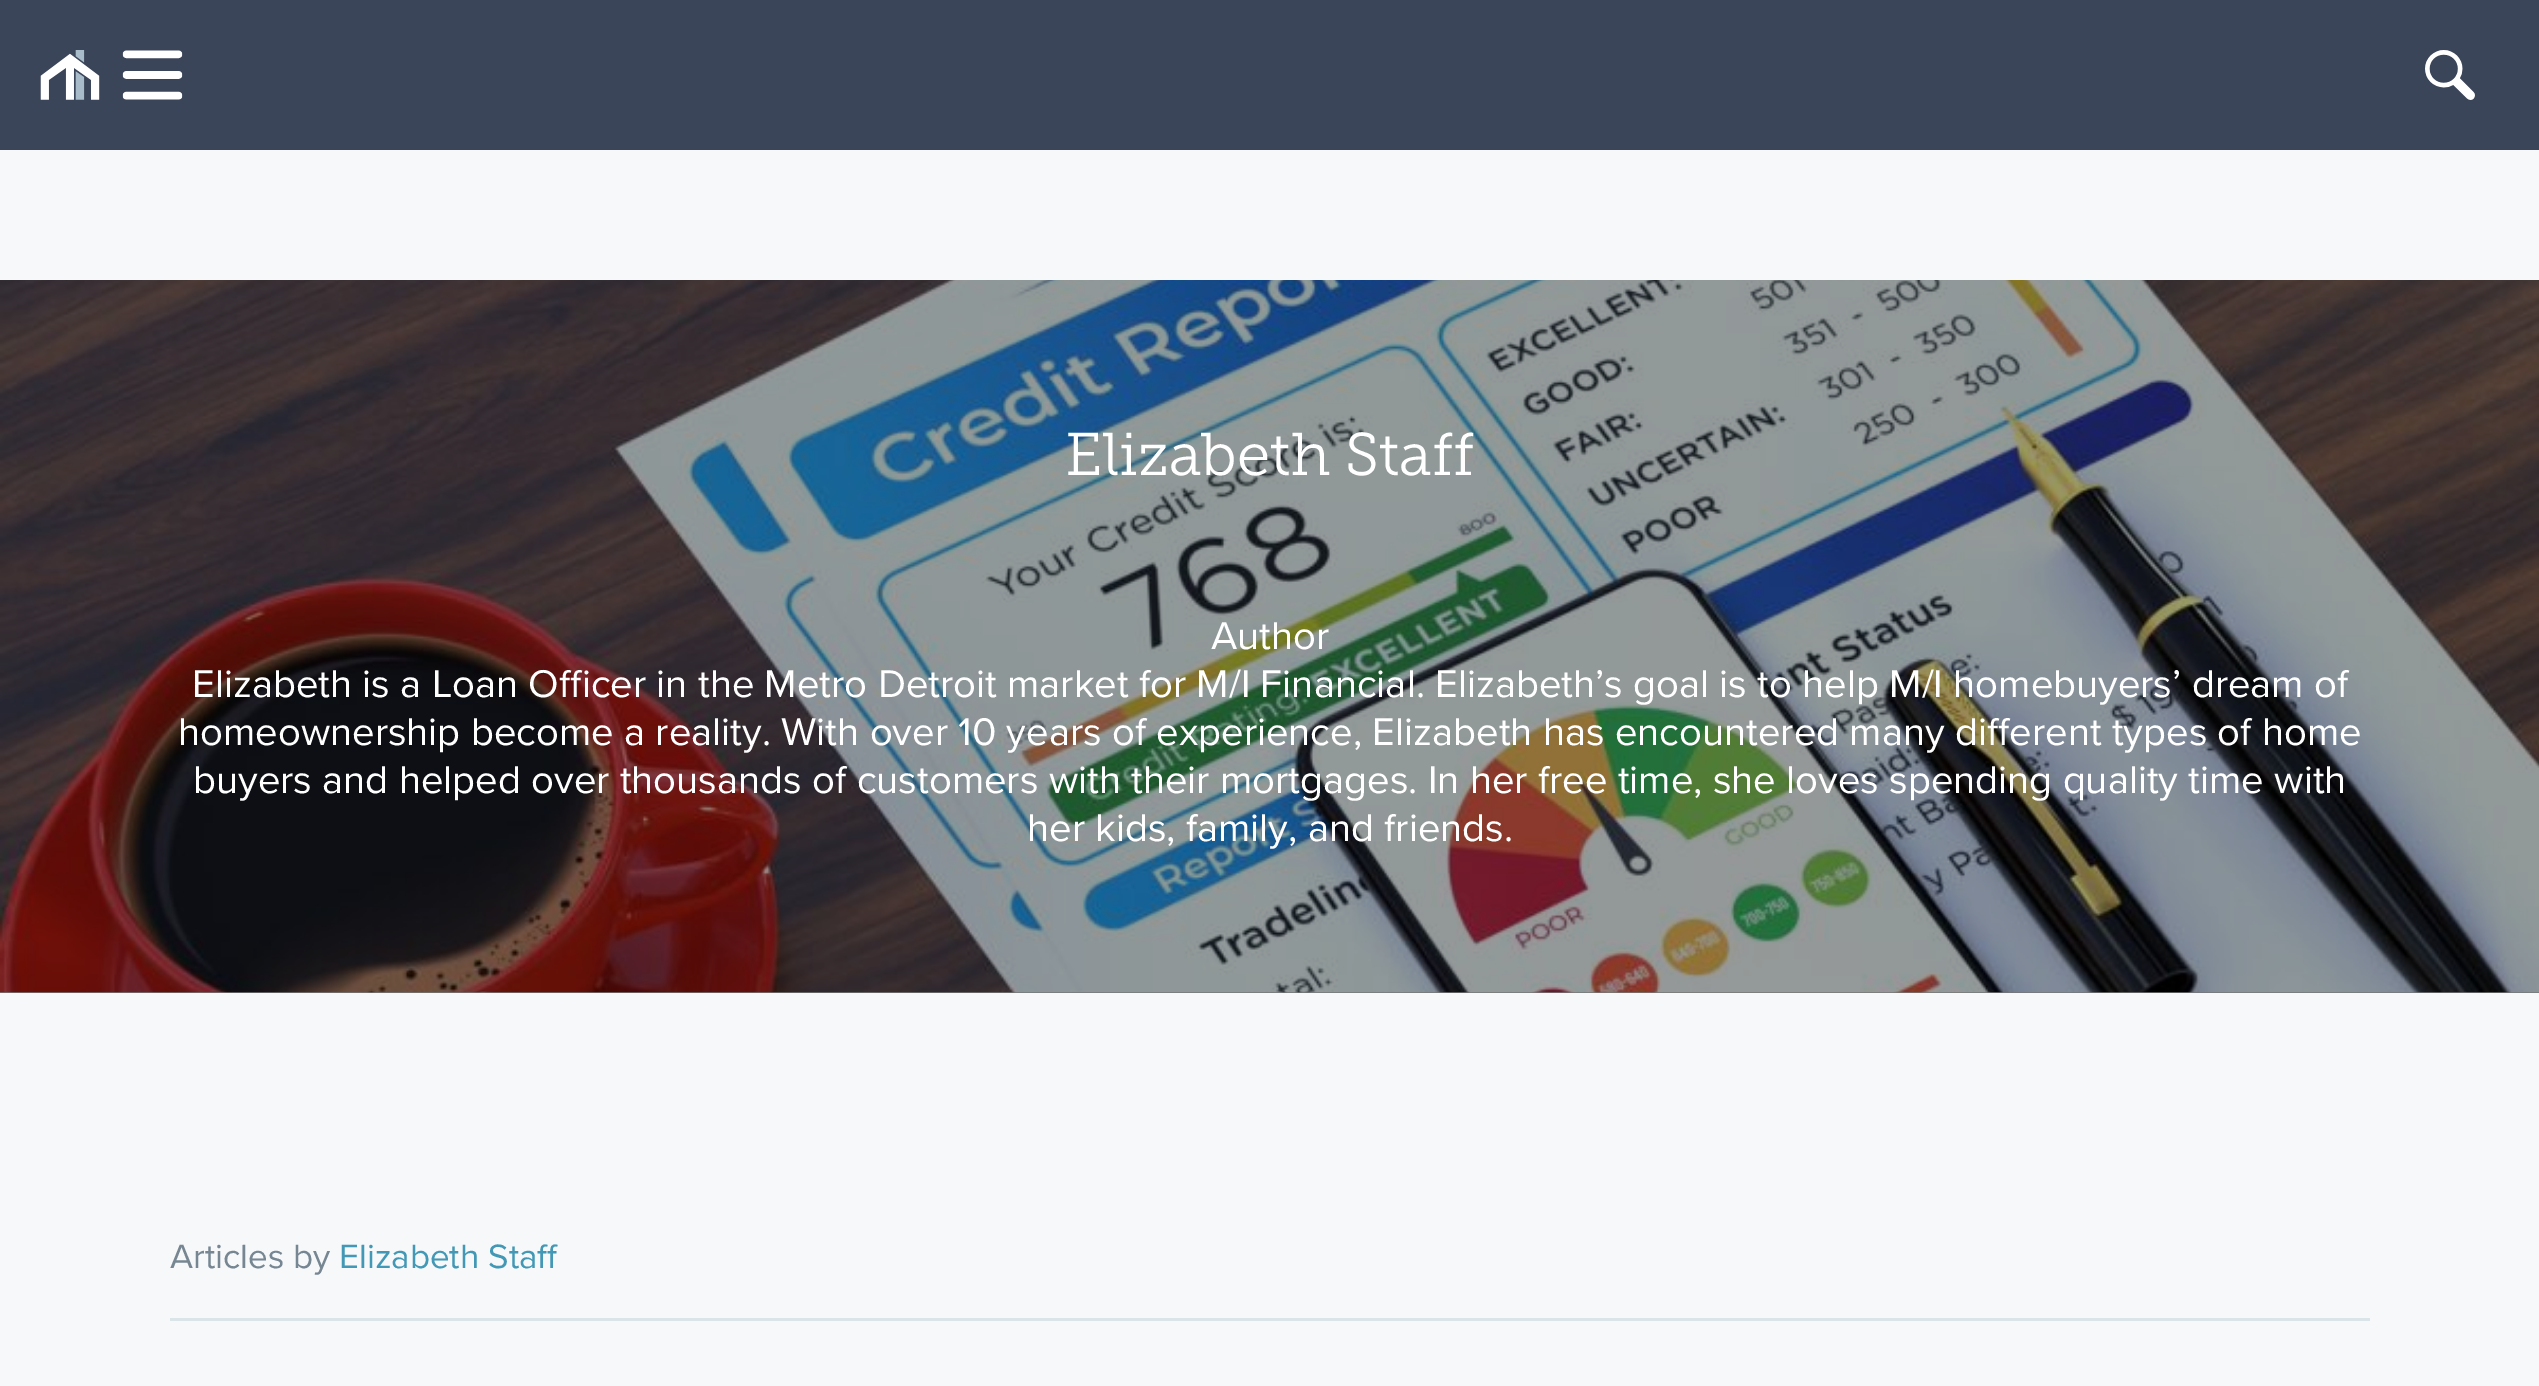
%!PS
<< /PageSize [2539 1386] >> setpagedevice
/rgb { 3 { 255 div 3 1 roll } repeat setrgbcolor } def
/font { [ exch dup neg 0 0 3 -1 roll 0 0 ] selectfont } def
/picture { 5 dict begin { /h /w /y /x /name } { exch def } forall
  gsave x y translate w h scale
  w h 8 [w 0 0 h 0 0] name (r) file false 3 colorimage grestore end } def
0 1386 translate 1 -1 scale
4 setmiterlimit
246 248 250 rgb
0 0 2539 1386 rectfill
59 69 89 rgb
0 0 2539 150 rectfill
(img/1.rgb) 40 50 60 50 picture
(img/2.rgb) 122 50 61 50 picture
(img/3.rgb) 2425 50 50 50 picture
117 119 119 rgb
0 992 2539 1 rectfill
(img/4.rgb) 0 280 2539 713 picture
219 228 233 rgb
170 1318 2200 3 rectfill
/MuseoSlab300-Light 60 font
255 255 255 rgb
1065 475 moveto (Elizabeth Staff) show
/ProximaNova-Regular 40 font
[
  [(Author) 1211 649]
  [(Elizabeth is a Loan Officer in the Metro Detroit market for M/I Financial. Elizabeth’s goal is to help M/I homebuyers’ dream of) 192 697]
  [(homeownership become a reality. With over 10 years of experience, Elizabeth has encountered many different types of home) 178 745]
  [(buyers and helped over thousands of customers with their mortgages. In her free time, she loves spending quality time with) 193 793]
  [(her kids, family, and friends.) 1027 841]
] { aload pop moveto show } forall
/ProximaNova-Regular 35 font
118 134 146 rgb
170 1268 moveto (Articles by) show
66 152 181 rgb
339 1268 moveto (Elizabeth Staff) show
showpage
